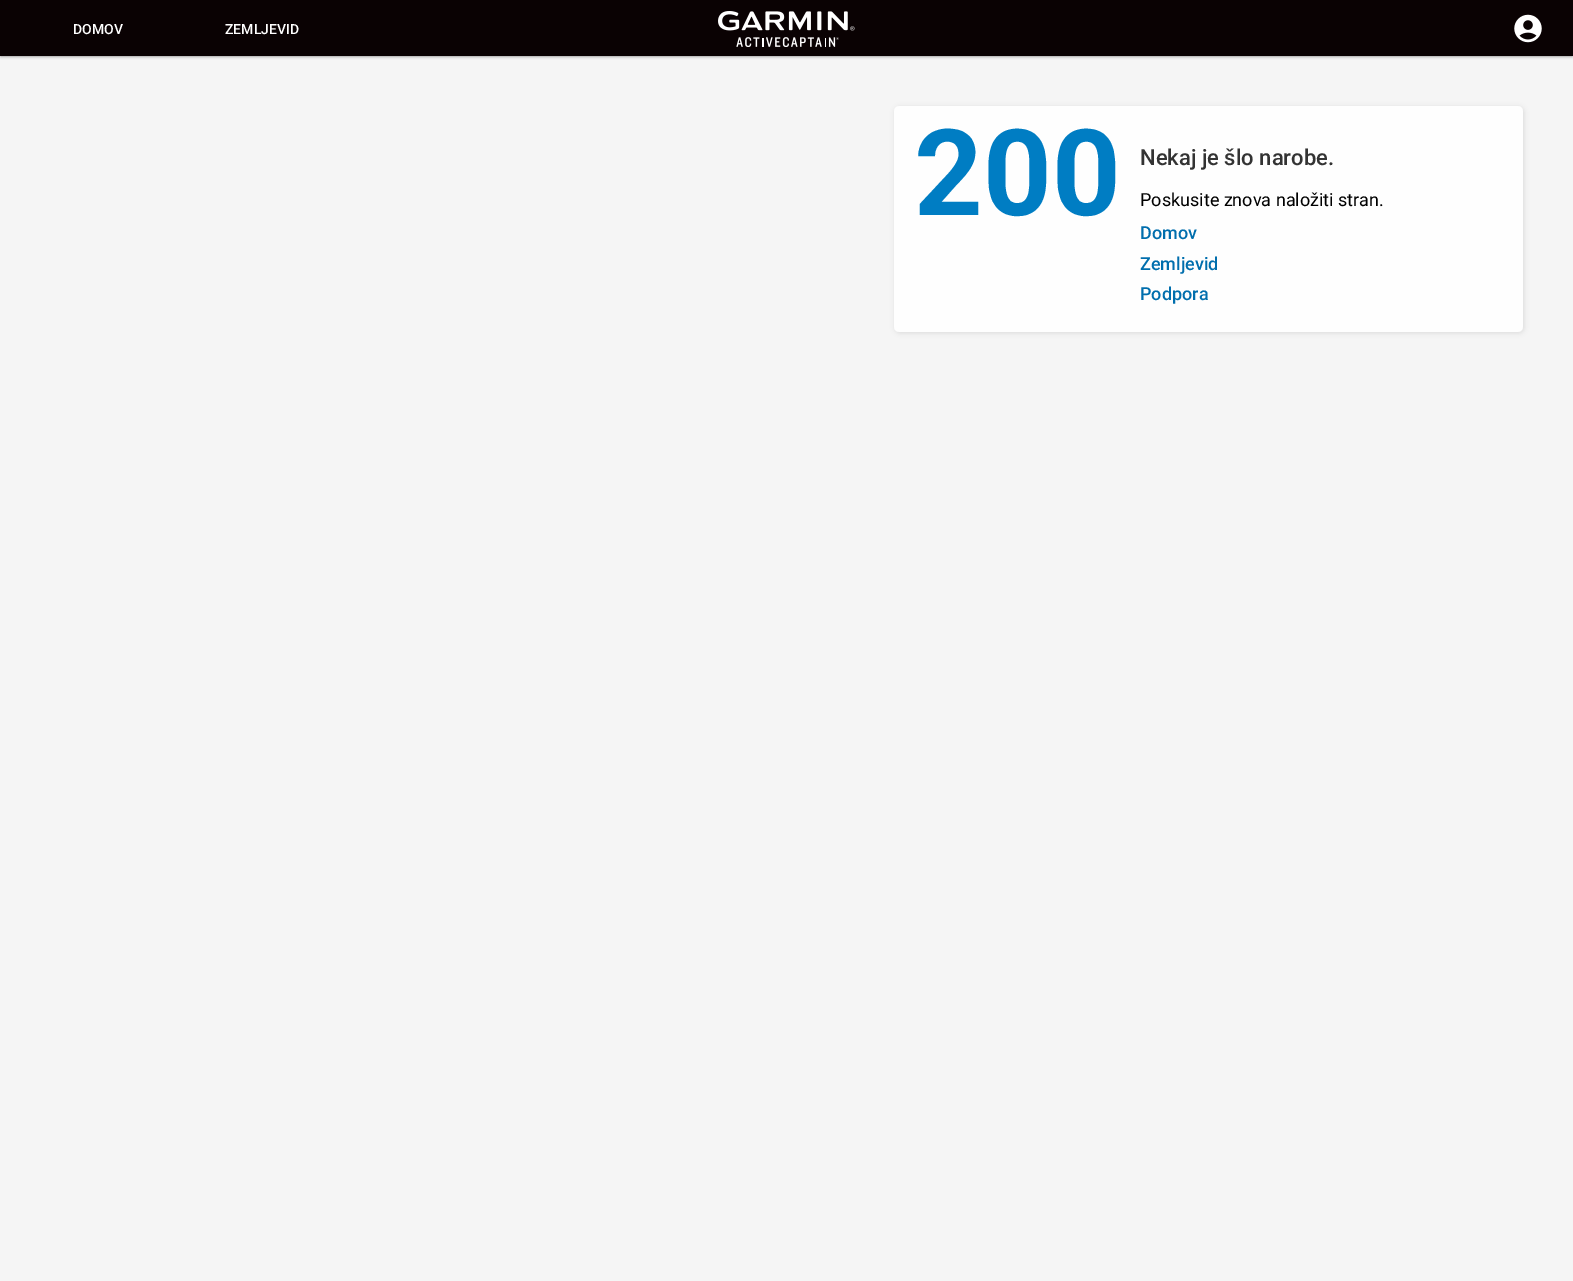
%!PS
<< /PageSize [1573 1281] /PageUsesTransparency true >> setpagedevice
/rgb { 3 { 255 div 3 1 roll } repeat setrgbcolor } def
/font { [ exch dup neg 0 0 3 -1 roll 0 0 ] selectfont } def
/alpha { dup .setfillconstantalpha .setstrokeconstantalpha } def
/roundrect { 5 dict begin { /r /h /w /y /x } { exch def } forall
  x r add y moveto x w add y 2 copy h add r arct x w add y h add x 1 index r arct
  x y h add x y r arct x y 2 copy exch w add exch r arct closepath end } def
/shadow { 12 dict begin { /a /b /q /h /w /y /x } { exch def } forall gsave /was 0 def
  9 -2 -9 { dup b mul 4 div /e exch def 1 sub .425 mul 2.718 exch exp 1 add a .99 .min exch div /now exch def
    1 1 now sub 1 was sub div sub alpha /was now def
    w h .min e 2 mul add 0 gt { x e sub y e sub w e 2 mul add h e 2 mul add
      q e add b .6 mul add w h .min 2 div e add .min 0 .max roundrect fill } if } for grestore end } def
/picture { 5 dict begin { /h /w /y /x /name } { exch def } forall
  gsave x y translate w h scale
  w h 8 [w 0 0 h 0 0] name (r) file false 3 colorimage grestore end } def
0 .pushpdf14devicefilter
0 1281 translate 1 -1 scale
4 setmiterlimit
245 245 245 rgb
0 0 1573 1281 rectfill
9 9 9 rgb
1 -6 1571 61 0 2 1 shadow
10 2 3 rgb
0 0 1573 56 rectfill
(img/1.rgb) 718 11 137 36 picture
(img/2.rgb) 1514 14 28 29 picture
gsave
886 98 moveto 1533 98 lineto 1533 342 lineto 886 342 lineto closepath 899 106 moveto 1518 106 lineto 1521 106 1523 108 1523 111 curveto 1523 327 lineto 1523 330 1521 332 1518 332 curveto 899 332 lineto 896 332 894 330 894 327 curveto 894 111 lineto 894 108 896 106 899 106 curveto closepath eoclip newpath
0 0 0 rgb
895 107 629 226 5 2.5 0.1 shadow
grestore
0.85 alpha
255 255 255 rgb
894 106 629 226 5 roundrect fill
/Roboto-Medium 14 font
1 alpha
73 34 moveto (DOMOV) show
225 34 moveto (ZEMLJEVID) show
/Roboto-Bold 120 font
0 125 195 rgb
914 215 moveto (200) show
/Roboto-Medium 22 font
51 51 51 rgb
1140 165 moveto (Nekaj je šlo narobe.) show
/Roboto-Regular 18 font
0 0 0 rgb
1140 206 moveto (Poskusite znova naložiti stran.) show
/Roboto-Medium 18 font
0 110 173 rgb
[
  [(Domov) 1140 239]
  [(Zemljevid) 1140 270]
  [(Podpora) 1140 300]
] { aload pop moveto show } forall
.poppdf14devicefilter showpage
